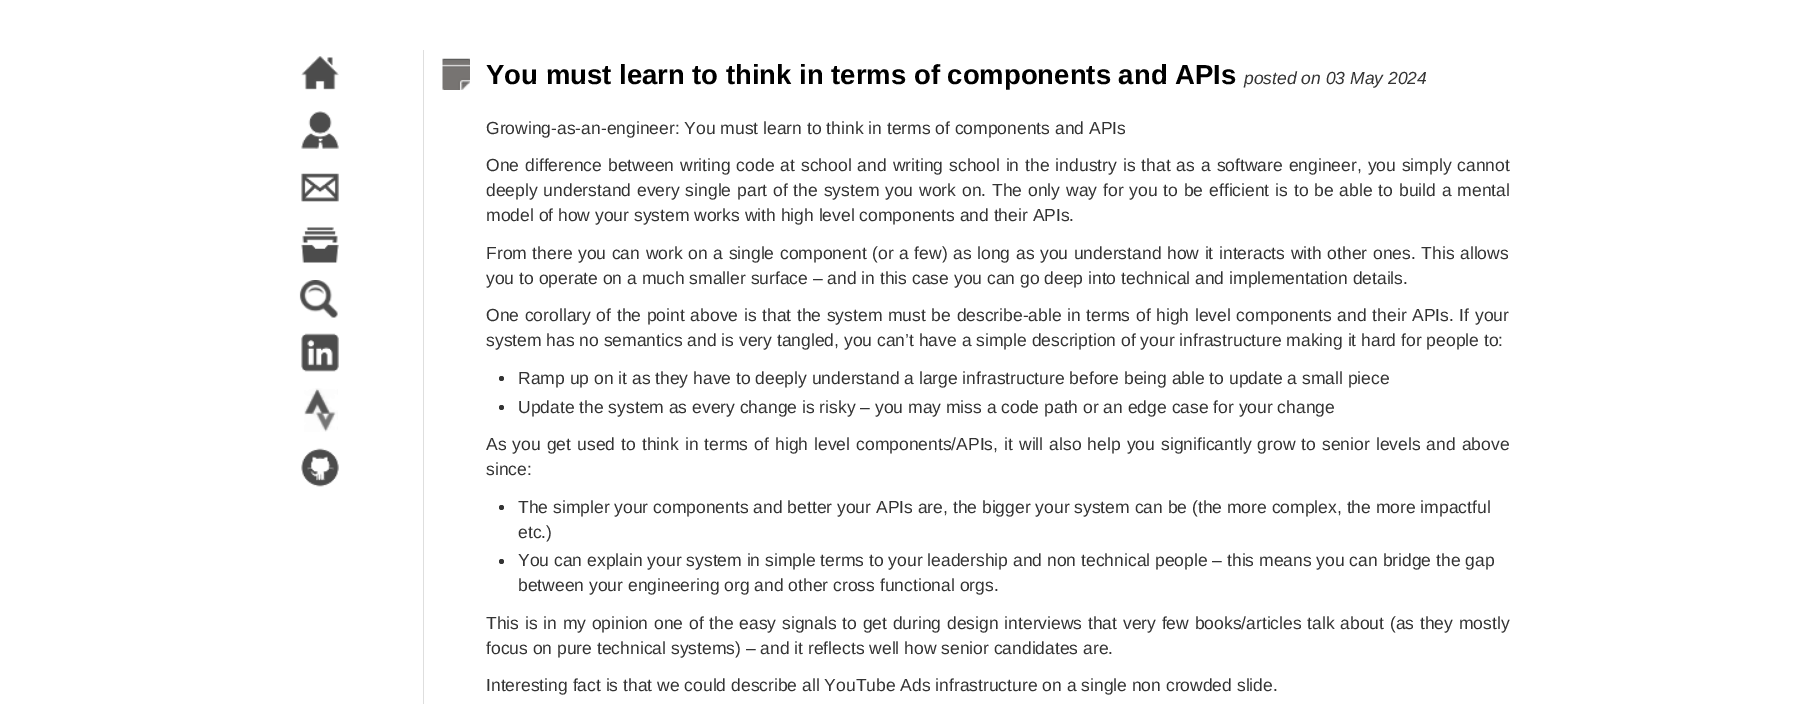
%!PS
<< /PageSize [1807 704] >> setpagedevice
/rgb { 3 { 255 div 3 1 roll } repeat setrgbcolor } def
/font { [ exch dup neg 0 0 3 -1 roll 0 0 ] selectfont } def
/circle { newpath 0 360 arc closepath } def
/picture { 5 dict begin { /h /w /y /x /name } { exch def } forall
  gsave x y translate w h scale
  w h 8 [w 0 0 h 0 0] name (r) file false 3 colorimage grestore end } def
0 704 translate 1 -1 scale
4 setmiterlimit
255 255 255 rgb
0 0 1807 704 rectfill
(img/1.rgb) 301 56 38 34 picture
(img/2.rgb) 301 111 38 38 picture
(img/3.rgb) 301 173 38 29 picture
(img/4.rgb) 301 227 38 36 picture
(img/5.rgb) 299 280 39 38 picture
(img/6.rgb) 301 333 38 39 picture
(img/7.rgb) 304 388 34 44 picture
(img/8.rgb) 301 448 38 39 picture
222 222 222 rgb
423 50 1 654 rectfill
(img/9.rgb) 442 58 28 32 picture
51 51 51 rgb
501.5 378.5 2.5 circle fill
501.5 407.5 2.5 circle fill
501.5 507.5 2.5 circle fill
501.5 561.5 2.5 circle fill
/LiberationSans-Bold 27.5 font
0 0 0 rgb
486 84 moveto (You must learn to think in terms of components and APIs) show
/LiberationSans-Italic 17.5 font
51 51 51 rgb
1244 84 moveto (posted on 03 May 2024) show
/LiberationSans-Regular 17.5 font
486 134 moveto (Growing-as-an-engineer: You must learn to think in terms of components and APIs) show
486 171 moveto 1.1 0 32 (One difference between writing code at school and writing school in the industry is that as a software engineer, you simply cannot) widthshow
486 196 moveto 1 0 32 (deeply understand every single part of the system you work on. The only way for you to be efficient is to be able to build a mental) widthshow
486 221 moveto (model of how your system works with high level components and their APIs.) show
486 259 moveto 0.75 0 32 (From there you can work on a single component \(or a few\) as long as you understand how it interacts with other ones. This allows) widthshow
486 284 moveto (you to operate on a much smaller surface – and in this case you can go deep into technical and implementation details.) show
486 321 moveto 0.8 0 32 (One corollary of the point above is that the system must be describe-able in terms of high level components and their APIs. If your) widthshow
[
  [(system has no semantics and is very tangled, you can’t have a simple description of your infrastructure making it hard for people to:) 486 346]
  [(Ramp up on it as they have to deeply understand a large infrastructure before being able to update a small piece) 518 384]
  [(Update the system as every change is risky – you may miss a code path or an edge case for your change) 518 413]
] { aload pop moveto show } forall
486 450 moveto 1.2 0 32 (As you get used to think in terms of high level components/APIs, it will also help you significantly grow to senior levels and above) widthshow
[
  [(since:) 486 475]
  [(The simpler your components and better your APIs are, the bigger your system can be \(the more complex, the more impactful) 518 513]
  [(etc.\)) 518 538]
  [(You can explain your system in simple terms to your leadership and non technical people – this means you can bridge the gap) 518 566]
  [(between your engineering org and other cross functional orgs.) 518 591]
] { aload pop moveto show } forall
486 629 moveto 0.9 0 32 (This is in my opinion one of the easy signals to get during design interviews that very few books/articles talk about \(as they mostly) widthshow
486 654 moveto (focus on pure technical systems\) – and it reflects well how senior candidates are.) show
486 691 moveto (Interesting fact is that we could describe all YouTube Ads infrastructure on a single non crowded slide.) show
showpage
